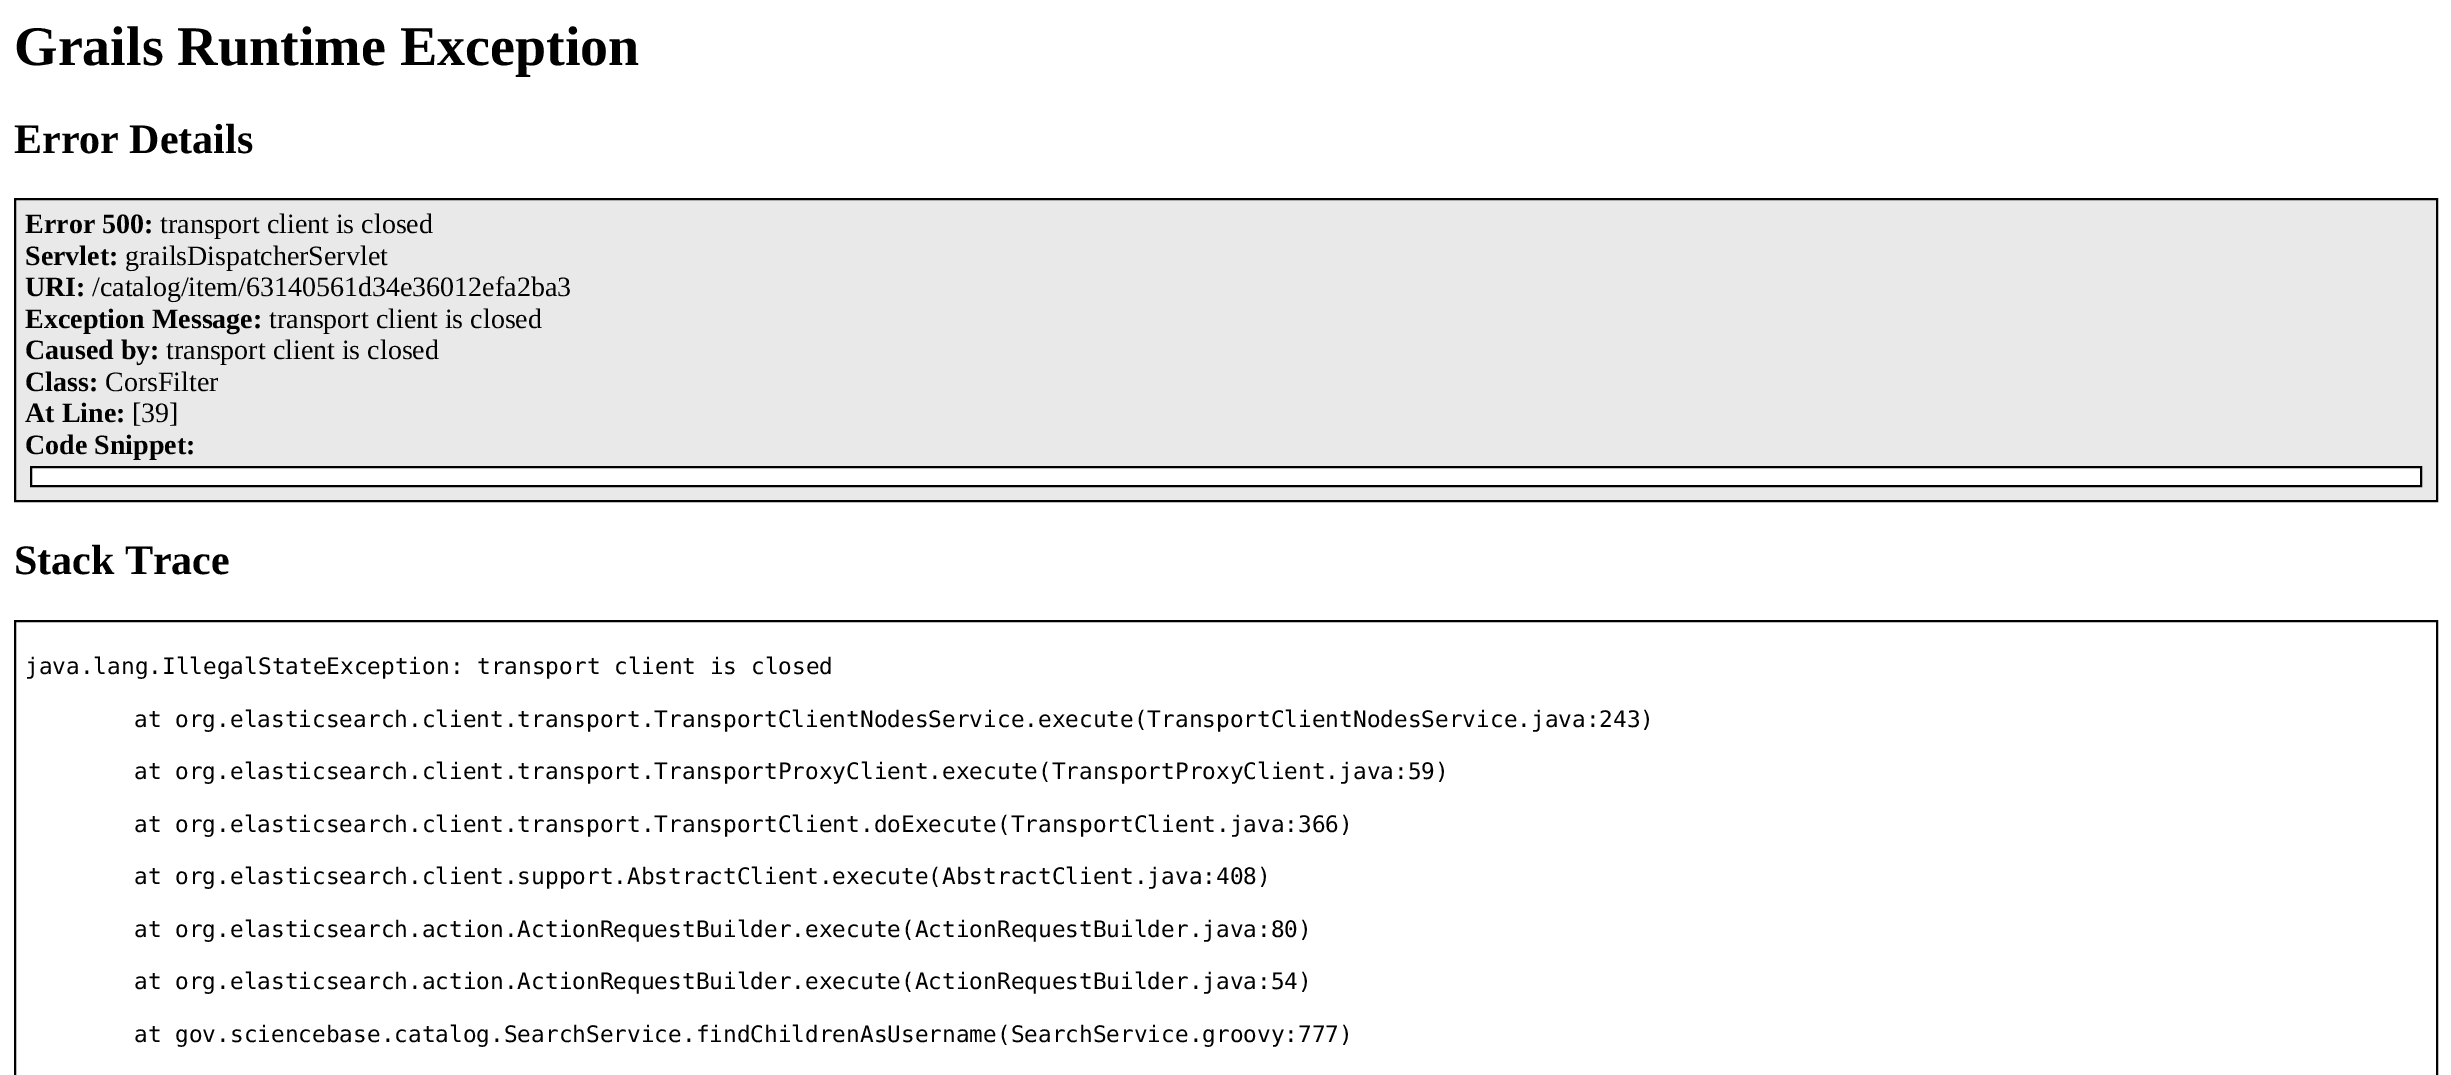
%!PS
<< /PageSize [2451 1075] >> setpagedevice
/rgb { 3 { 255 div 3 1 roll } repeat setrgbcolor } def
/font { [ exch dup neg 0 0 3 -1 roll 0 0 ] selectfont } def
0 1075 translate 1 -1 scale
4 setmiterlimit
255 255 255 rgb
0 0 2451 1075 rectfill
233 233 233 rgb
15 199 moveto 2437 199 lineto 2437 501 lineto 15 501 lineto closepath gsave fill grestore
0 0 0 rgb
2 setlinewidth
stroke
255 255 255 rgb
31 467 moveto 2421 467 lineto 2421 486 lineto 31 486 lineto closepath gsave fill grestore
0 0 0 rgb
stroke
15 621 2422 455 rectstroke
/LiberationSerif-Bold 56 font
14 65 moveto (Grails Runtime Exception) show
/LiberationSerif-Bold 42 font
14 153 moveto (Error Details) show
/LiberationSerif-Bold 28 font
25 233 moveto (Error 500:) show
/LiberationSerif-Regular 28 font
160 233 moveto (transport client is closed) show
/LiberationSerif-Bold 28 font
25 265 moveto (Servlet:) show
/LiberationSerif-Regular 28 font
125 265 moveto (grailsDispatcherServlet) show
/LiberationSerif-Bold 28 font
25 296 moveto (URI:) show
/LiberationSerif-Regular 28 font
92 296 moveto (/catalog/item/63140561d34e36012efa2ba3) show
/LiberationSerif-Bold 28 font
25 328 moveto (Exception Message:) show
/LiberationSerif-Regular 28 font
269 328 moveto (transport client is closed) show
/LiberationSerif-Bold 28 font
25 359 moveto (Caused by:) show
/LiberationSerif-Regular 28 font
166 359 moveto (transport client is closed) show
/LiberationSerif-Bold 28 font
25 391 moveto (Class:) show
/LiberationSerif-Regular 28 font
105 391 moveto (CorsFilter) show
/LiberationSerif-Bold 28 font
25 422 moveto (At Line:) show
/LiberationSerif-Regular 28 font
132 422 moveto ([39]) show
/LiberationSerif-Bold 28 font
25 454 moveto (Code Snippet:) show
/LiberationSerif-Bold 42 font
14 574 moveto (Stack Trace) show
/DejaVuSansMono-Regular 22.75 font
[
  [(java.lang.IllegalStateException: transport client is closed) 25 674]
  [(at org.elasticsearch.client.transport.TransportClientNodesService.execute\(TransportClientNodesService.java:243\)) 134 727]
  [(at org.elasticsearch.client.transport.TransportProxyClient.execute\(TransportProxyClient.java:59\)) 134 779]
  [(at org.elasticsearch.client.transport.TransportClient.doExecute\(TransportClient.java:366\)) 134 832]
  [(at org.elasticsearch.client.support.AbstractClient.execute\(AbstractClient.java:408\)) 134 884]
  [(at org.elasticsearch.action.ActionRequestBuilder.execute\(ActionRequestBuilder.java:80\)) 134 937]
  [(at org.elasticsearch.action.ActionRequestBuilder.execute\(ActionRequestBuilder.java:54\)) 134 989]
  [(at gov.sciencebase.catalog.SearchService.findChildrenAsUsername\(SearchService.groovy:777\)) 134 1042]
] { aload pop moveto show } forall
showpage
